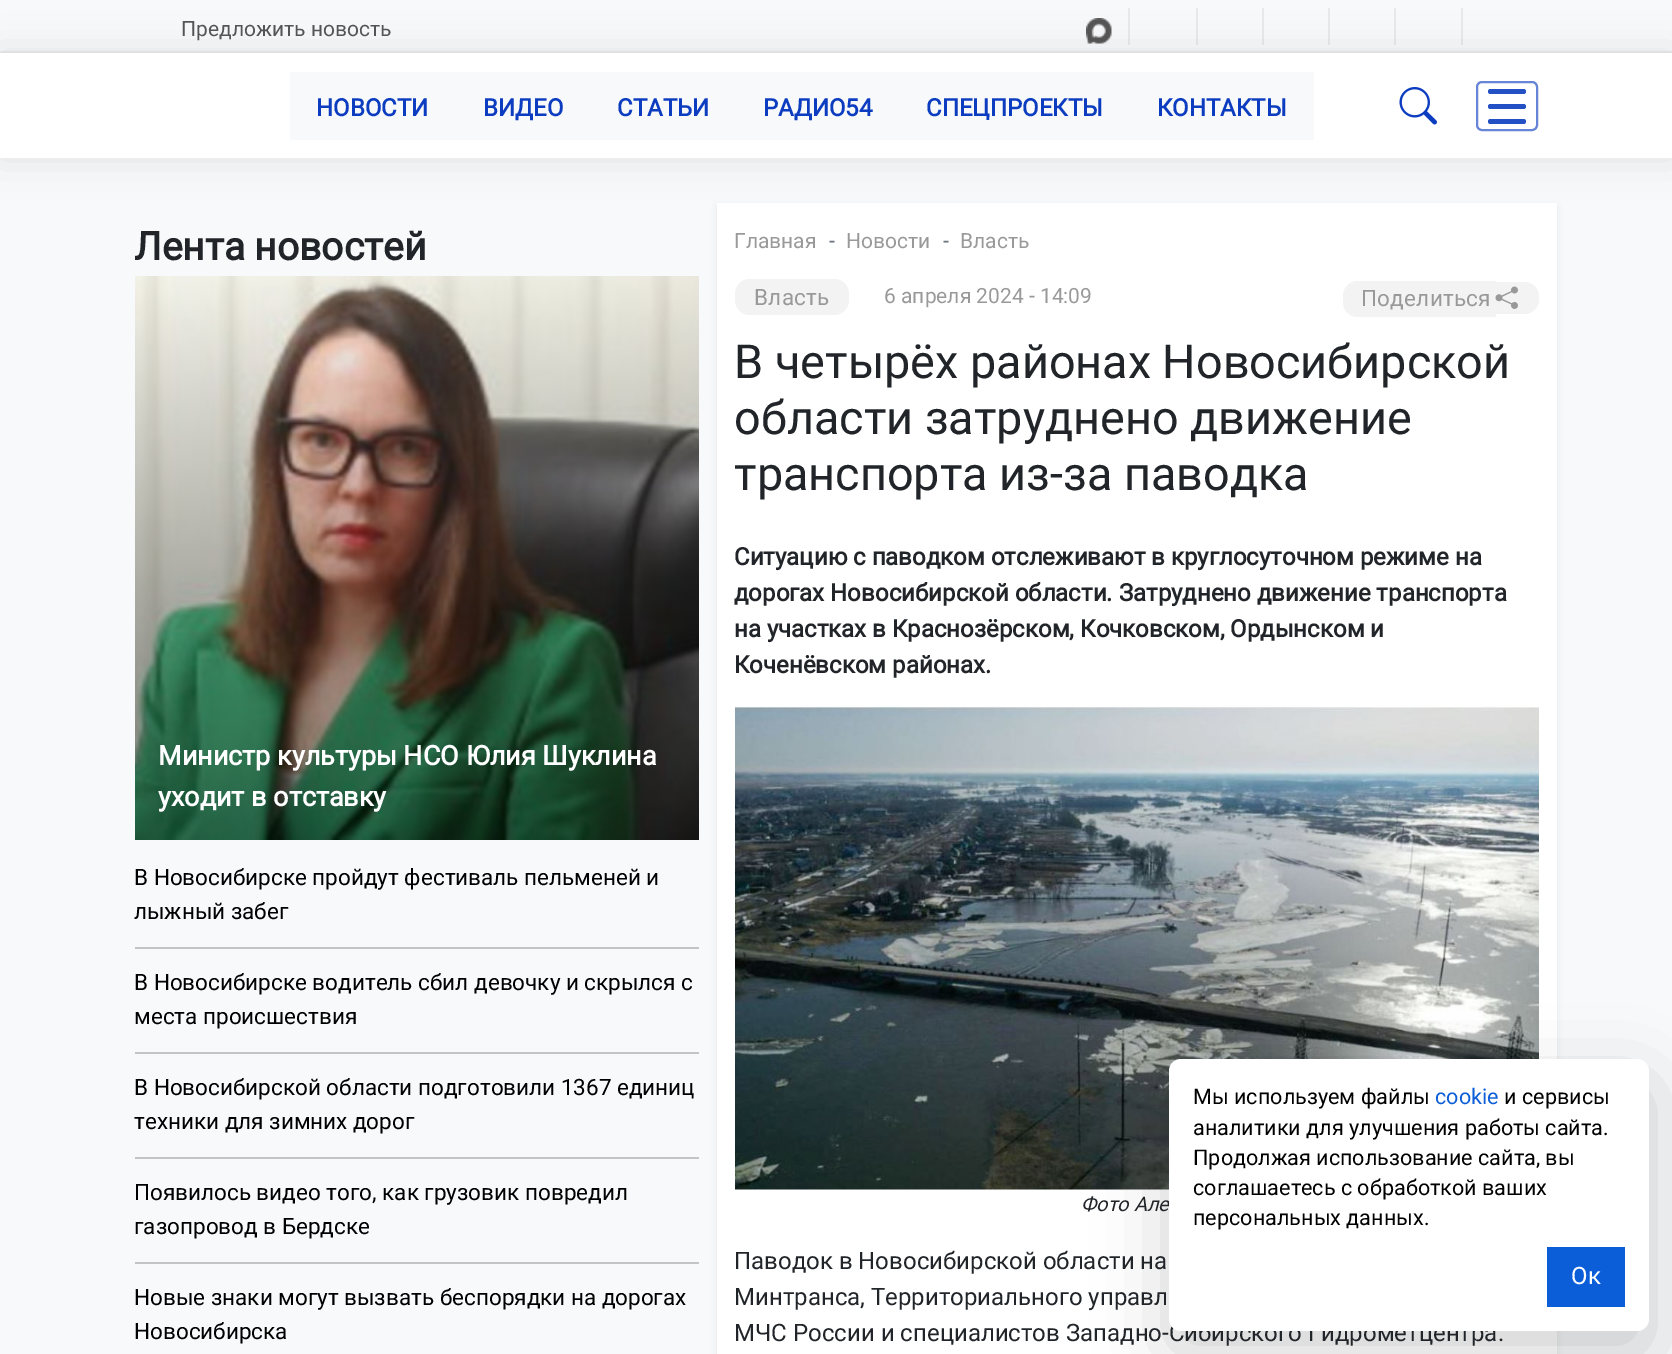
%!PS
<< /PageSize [1672 1354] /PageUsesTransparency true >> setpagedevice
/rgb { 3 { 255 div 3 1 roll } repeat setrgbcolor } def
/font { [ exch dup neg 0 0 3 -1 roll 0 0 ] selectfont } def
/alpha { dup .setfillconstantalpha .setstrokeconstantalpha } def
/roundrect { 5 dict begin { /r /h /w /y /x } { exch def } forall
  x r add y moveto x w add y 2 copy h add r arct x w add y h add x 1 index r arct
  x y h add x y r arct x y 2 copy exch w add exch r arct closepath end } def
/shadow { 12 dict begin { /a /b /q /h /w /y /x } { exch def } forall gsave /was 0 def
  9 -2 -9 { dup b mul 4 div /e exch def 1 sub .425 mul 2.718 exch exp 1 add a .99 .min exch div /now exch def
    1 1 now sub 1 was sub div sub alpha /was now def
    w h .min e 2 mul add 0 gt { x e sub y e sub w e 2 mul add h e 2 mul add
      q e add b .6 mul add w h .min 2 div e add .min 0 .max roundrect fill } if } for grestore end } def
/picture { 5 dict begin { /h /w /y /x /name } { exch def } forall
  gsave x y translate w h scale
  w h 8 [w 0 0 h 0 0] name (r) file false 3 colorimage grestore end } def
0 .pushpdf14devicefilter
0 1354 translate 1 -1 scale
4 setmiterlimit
248 249 250 rgb
0 0 1672 1354 rectfill
238 238 238 rgb
0 51 1672 2 rectfill
(img/1.rgb) 1086 18 26 26 picture
[
  [1128 8 2 37 233 233 233]
  [1196 8 2 37 233 233 233]
  [1262 8 2 37 233 233 233]
  [1328 8 2 37 233 233 233]
  [1394 8 2 37 233 233 233]
  [1461 8 2 37 233 233 233]
] { aload pop rgb rectfill } forall
0 0 0 rgb
717 206 840 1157 0 3 0.07 shadow
255 255 255 rgb
717 203 840 1151 rectfill
0 0 0 rgb
0 53 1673 105 0 19 0.1 shadow
255 255 255 rgb
0 53 1672 105 rectfill
248 249 250 rgb
290 72 1024 68 rectfill
(img/2.rgb) 1399 87 38 38 picture
102 133 215 rgb
2 setlinewidth
1477 82 60 48 5 roundrect stroke
36 80 198 rgb
1488 104 38 5 2.5 roundrect fill
1488 89 38 5 2.5 roundrect fill
1488 119 38 5 2.5 roundrect fill
(img/3.rgb) 135 276 564 564 picture
[
  [135 947 564 2 194 196 198]
  [135 1052 564 2 194 196 198]
  [135 1157 564 2 194 196 198]
  [135 1262 564 2 194 196 198]
] { aload pop rgb rectfill } forall
243 243 243 rgb
735 279 114 36 15 roundrect fill
1358 281 moveto 1496 281 lineto 1496 317 lineto 1358 317 lineto 1349.5 317 1343 310.5 1343 302 curveto 1343 296 lineto 1343 287.5 1349.5 281 1358 281 curveto closepath fill
1496 282 moveto 1524 282 lineto 1532.5 282 1539 288.5 1539 297 curveto 1539 299 lineto 1539 307.5 1532.5 314 1524 314 curveto 1496 314 lineto closepath fill
(img/4.rgb) 1495 286 23 23 picture
(img/5.rgb) 735 706 804 484 picture
0 0 0 rgb
1169 1083 480 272 12 36 0.18 shadow
/Roboto-Regular 21 font
85 85 85 rgb
181 36 moveto (Предложить новость) show
/Roboto-Bold 24 font
12 60 192 rgb
[
  [(НОВОСТИ) 316 116]
  [(ВИДЕО) 483 116]
  [(СТАТЬИ) 617 116]
  [(РАДИО54) 763 116]
  [(СПЕЦПРОЕКТЫ) 926 116]
  [(КОНТАКТЫ) 1157 116]
] { aload pop moveto show } forall
/Roboto-Bold 39 font
33 37 41 rgb
134 260 moveto (Лента новостей) show
/Roboto-Bold 27 font
255 255 255 rgb
158 765 moveto (Министр культуры НСО Юлия Шуклина) show
158 806 moveto (уходит в отставку) show
/Roboto-Regular 22.5 font
0 0 0 rgb
[
  [(В Новосибирске пройдут фестиваль пельменей и) 134 885]
  [(лыжный забег) 134 919]
  [(В Новосибирске водитель сбил девочку и скрылся с) 134 990]
  [(места происшествия) 134 1024]
  [(В Новосибирской области подготовили 1367 единиц) 134 1095]
  [(техники для зимних дорог) 134 1129]
  [(Появилось видео того, как грузовик повредил) 134 1200]
  [(газопровод в Бердске) 134 1234]
  [(Новые знаки могут вызвать беспорядки на дорогах) 134 1305]
  [(Новосибирска) 134 1339]
] { aload pop moveto show } forall
/Roboto-Regular 21 font
153 153 153 rgb
734 248 moveto (Главная) show
108 117 125 rgb
829 248 moveto (-) show
153 153 153 rgb
846 248 moveto (Новости) show
108 117 125 rgb
943 248 moveto (-) show
153 153 153 rgb
960 248 moveto (Власть) show
/Roboto-Regular 22.5 font
754 305 moveto 0.25 0 (Власть) ashow
/Roboto-Regular 21 font
884 303 moveto (6 апреля 2024 - 14:09) show
/Roboto-Regular 22.5 font
1361 306 moveto 0.25 0 (Поделиться) ashow
/Roboto-Regular 46.8 font
33 37 41 rgb
[
  [(В четырёх районах Новосибирской) 734 378]
  [(области затруднено движение) 734 434]
  [(транспорта из-за паводка) 734 490]
] { aload pop moveto show } forall
/Roboto-Bold 24 font
[
  [(Ситуацию с паводком отслеживают в круглосуточном режиме на) 734 565]
  [(дорогах Новосибирской области. Затруднено движение транспорта) 734 601]
  [(на участках в Краснозёрском, Кочковском, Ордынском и) 734 637]
  [(Коченёвском районах.) 734 673]
] { aload pop moveto show } forall
/Roboto-Italic 20 font
1081 1211 moveto (Фото Але) show
/Roboto-Regular 24 font
[
  [(Паводок в Новосибирской области на) 734 1269]
  [(Минтранса, Территориального управл) 734 1305]
  [(МЧС России и специалистов Западно-Сибирского Гидрометцентра.) 734 1341]
] { aload pop moveto show } forall
255 255 255 rgb
1169 1059 480 272 12 roundrect fill
/Roboto-Regular 21.6 font
0 0 0 rgb
1193 1104 moveto (Мы используем файлы) show
11 94 215 rgb
1435 1104 moveto (cookie) show
0 0 0 rgb
[
  [(и сервисы) 1504 1104]
  [(аналитики для улучшения работы сайта.) 1193 1135]
  [(Продолжая использование сайта, вы) 1193 1165]
  [(соглашаетесь с обработкой ваших) 1193 1195]
  [(персональных данных.) 1193 1225]
] { aload pop moveto show } forall
11 94 215 rgb
1547 1247 78 60 rectfill
/Roboto-Regular 24 font
255 255 255 rgb
1571 1284 moveto (Ок) show
.poppdf14devicefilter showpage
